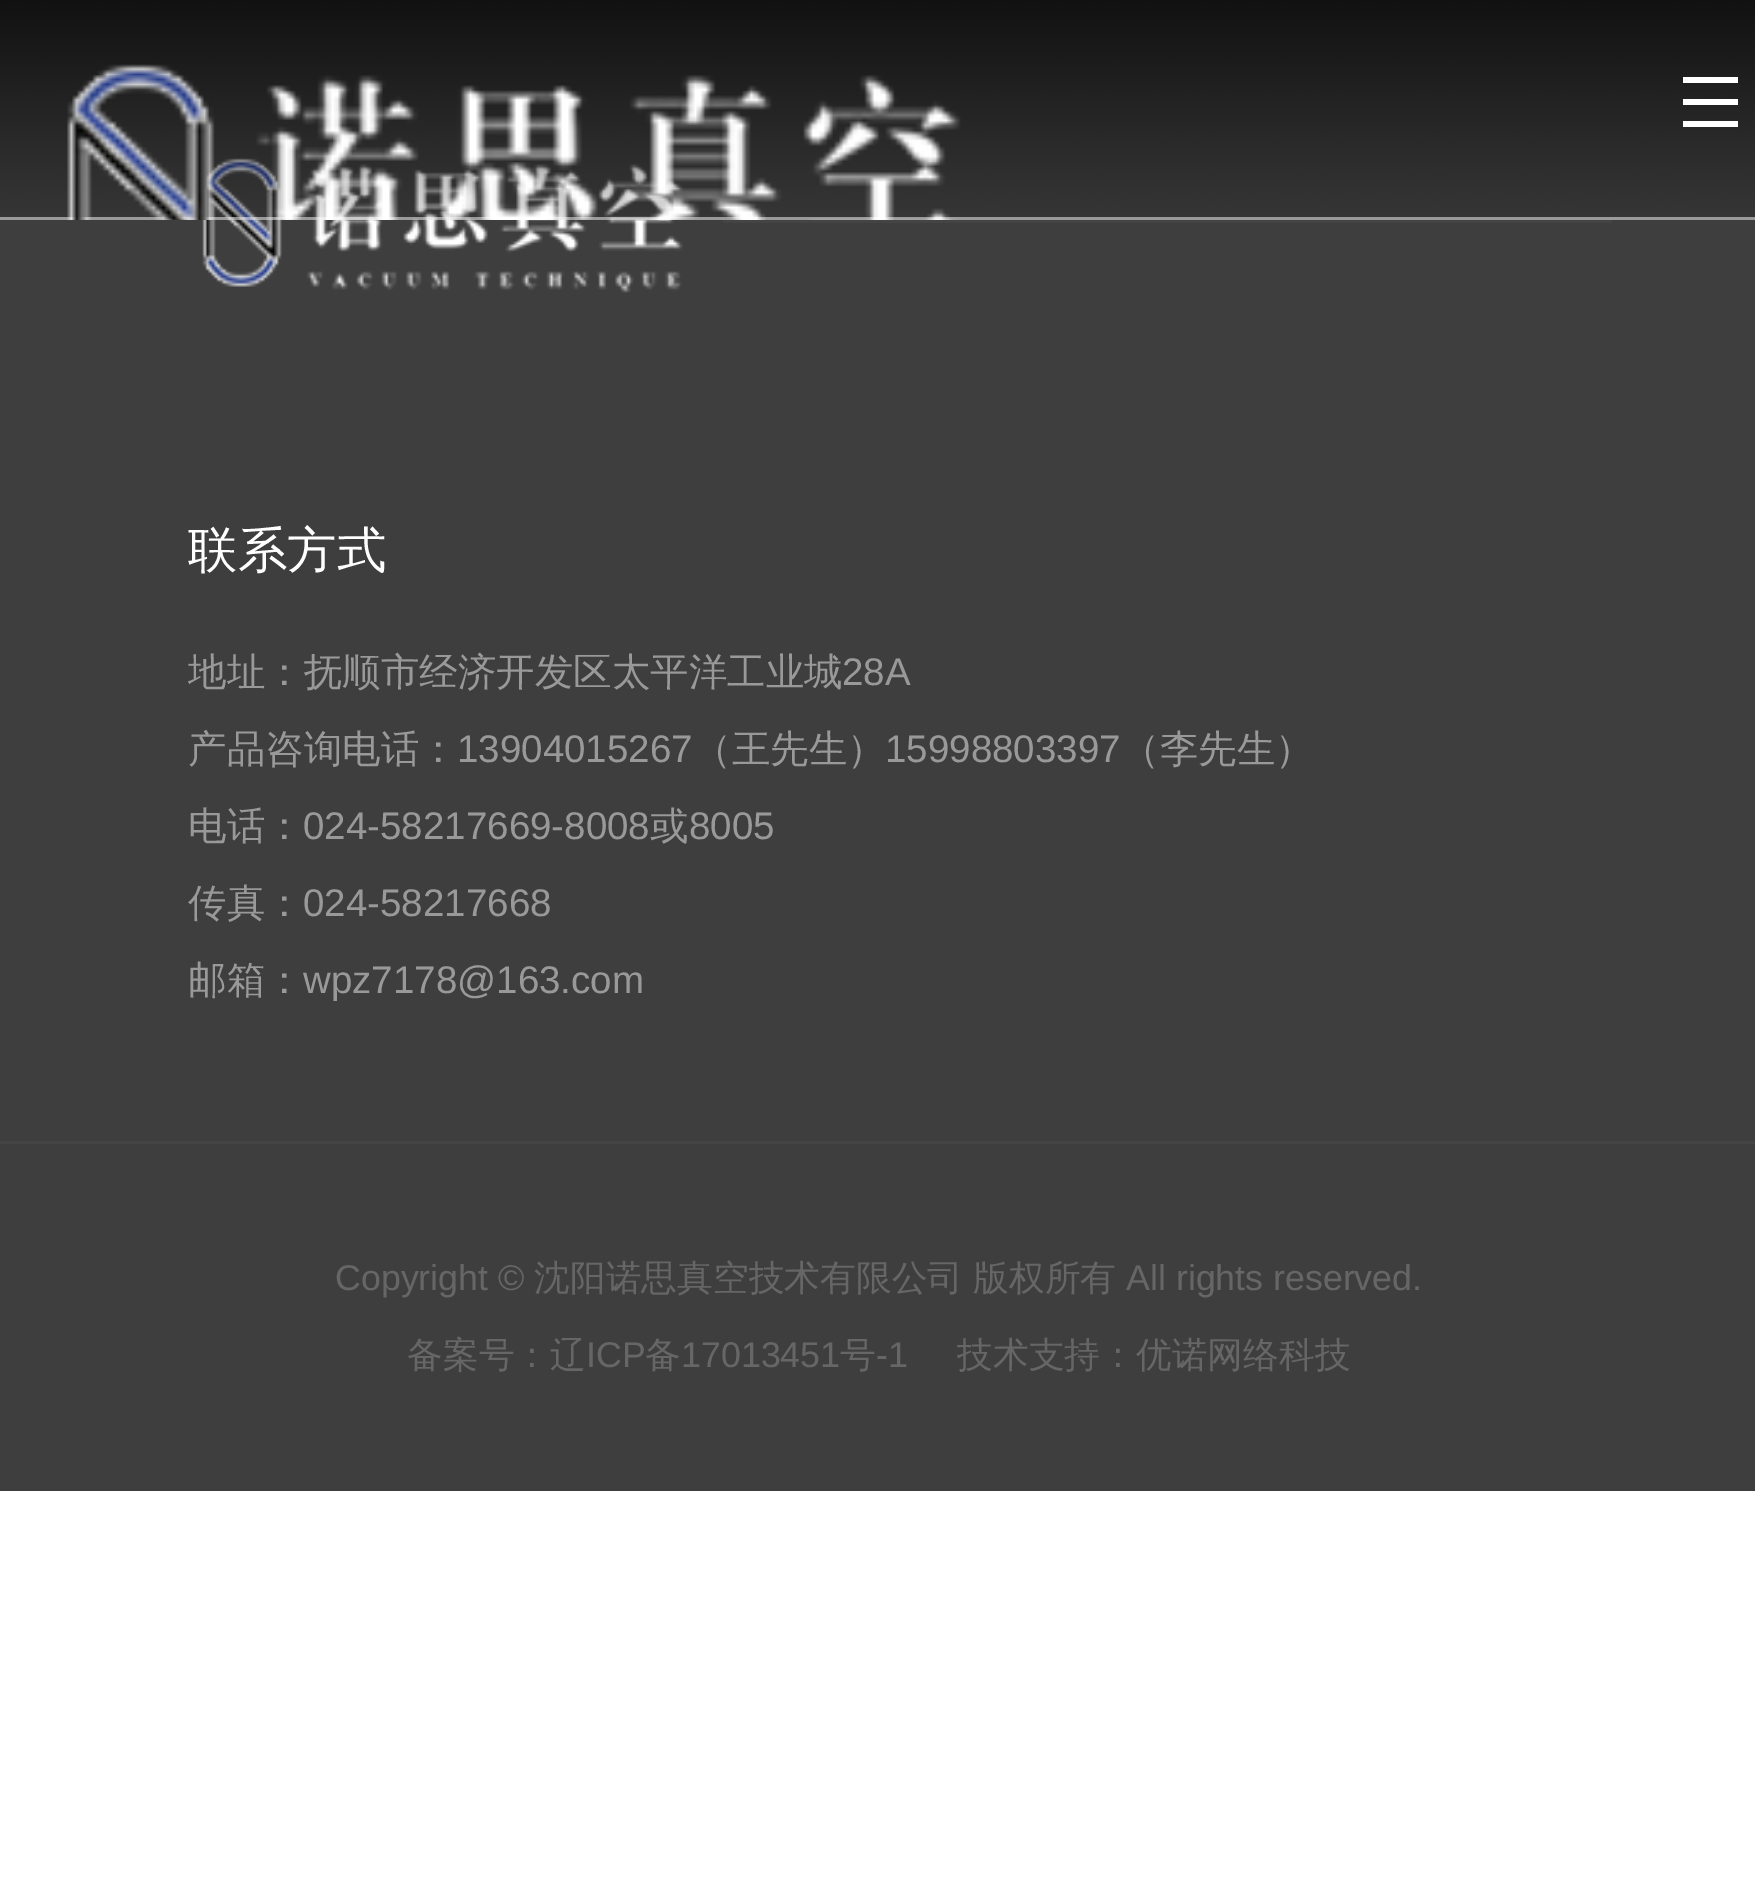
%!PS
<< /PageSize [1755 1902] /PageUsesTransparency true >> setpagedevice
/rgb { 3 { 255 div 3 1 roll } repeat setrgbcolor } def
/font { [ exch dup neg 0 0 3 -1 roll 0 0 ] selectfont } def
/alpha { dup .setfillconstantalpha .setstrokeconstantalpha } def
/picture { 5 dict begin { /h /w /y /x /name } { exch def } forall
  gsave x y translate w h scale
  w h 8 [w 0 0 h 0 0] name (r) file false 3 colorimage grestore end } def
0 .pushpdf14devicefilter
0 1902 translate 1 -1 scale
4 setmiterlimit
255 255 255 rgb
0 0 1755 1902 rectfill
62 62 62 rgb
0 0 1755 1141 rectfill
(img/3.rgb) 202 158 481 135 picture
(img/1.rgb) 0 0 1755 220 picture
0.5 alpha
255 255 255 rgb
0 217 1755 3 rectfill
1 alpha
(img/2.rgb) 67 64 894 156 picture
[
  [1683 77 55 6 255 255 255]
  [1683 99 55 6 255 255 255]
  [1683 121 55 6 255 255 255]
  [723 220 889 3 68 68 68]
  [0 1144 1755 347 62 62 62]
  [0 1141 1755 3 68 68 68]
] { aload pop rgb rectfill } forall
/WenQuanYiZenHei-Medium 49.5 font
255 255 255 rgb
188 567 moveto (联系方式) show
/WenQuanYiZenHei-Medium 38.5 font
153 153 153 rgb
188 685 moveto (地址：抚顺市经济开发区太平洋工业城) show
/LiberationSans-Regular 38.5 font
842 685 moveto (28A) show
/WenQuanYiZenHei-Medium 38.5 font
188 762 moveto (产品咨询电话：) show
/LiberationSans-Regular 38.5 font
457 762 moveto (13904015267) show
/WenQuanYiZenHei-Medium 38.5 font
693 762 moveto (（王先生）) show
/LiberationSans-Regular 38.5 font
885 762 moveto (15998803397) show
/WenQuanYiZenHei-Medium 38.5 font
1121 762 moveto (（李先生）) show
188 839 moveto (电话：) show
/LiberationSans-Regular 38.5 font
303 839 moveto (024-58217669-8008) show
/WenQuanYiZenHei-Medium 38.5 font
650 839 moveto (或) show
/LiberationSans-Regular 38.5 font
689 839 moveto (8005) show
/WenQuanYiZenHei-Medium 38.5 font
188 916 moveto (传真：) show
/LiberationSans-Regular 38.5 font
303 916 moveto (024-58217668) show
/WenQuanYiZenHei-Medium 38.5 font
188 993 moveto (邮箱：) show
/LiberationSans-Regular 38.5 font
303 993 moveto (wpz7178@163.com) show
/LiberationSans-Regular 35.75 font
102 102 102 rgb
335 1290 moveto (Copyright ©) show
/WenQuanYiZenHei-Medium 35.75 font
534 1290 moveto (沈阳诺思真空技术有限公司) show
973 1290 moveto (版权所有) show
/LiberationSans-Regular 35.75 font
1126 1290 moveto (All rights reserved.) show
/WenQuanYiZenHei-Medium 35.75 font
407 1367 moveto (备案号：辽) show
/LiberationSans-Regular 35.75 font
586 1367 moveto (ICP) show
/WenQuanYiZenHei-Medium 35.75 font
645 1367 moveto (备) show
/LiberationSans-Regular 35.75 font
681 1367 moveto (17013451) show
/WenQuanYiZenHei-Medium 35.75 font
840 1367 moveto (号) show
/LiberationSans-Regular 35.75 font
876 1367 moveto (-1) show
/WenQuanYiZenHei-Medium 35.75 font
957 1367 moveto (技术支持：优诺网络科技) show
.poppdf14devicefilter showpage
